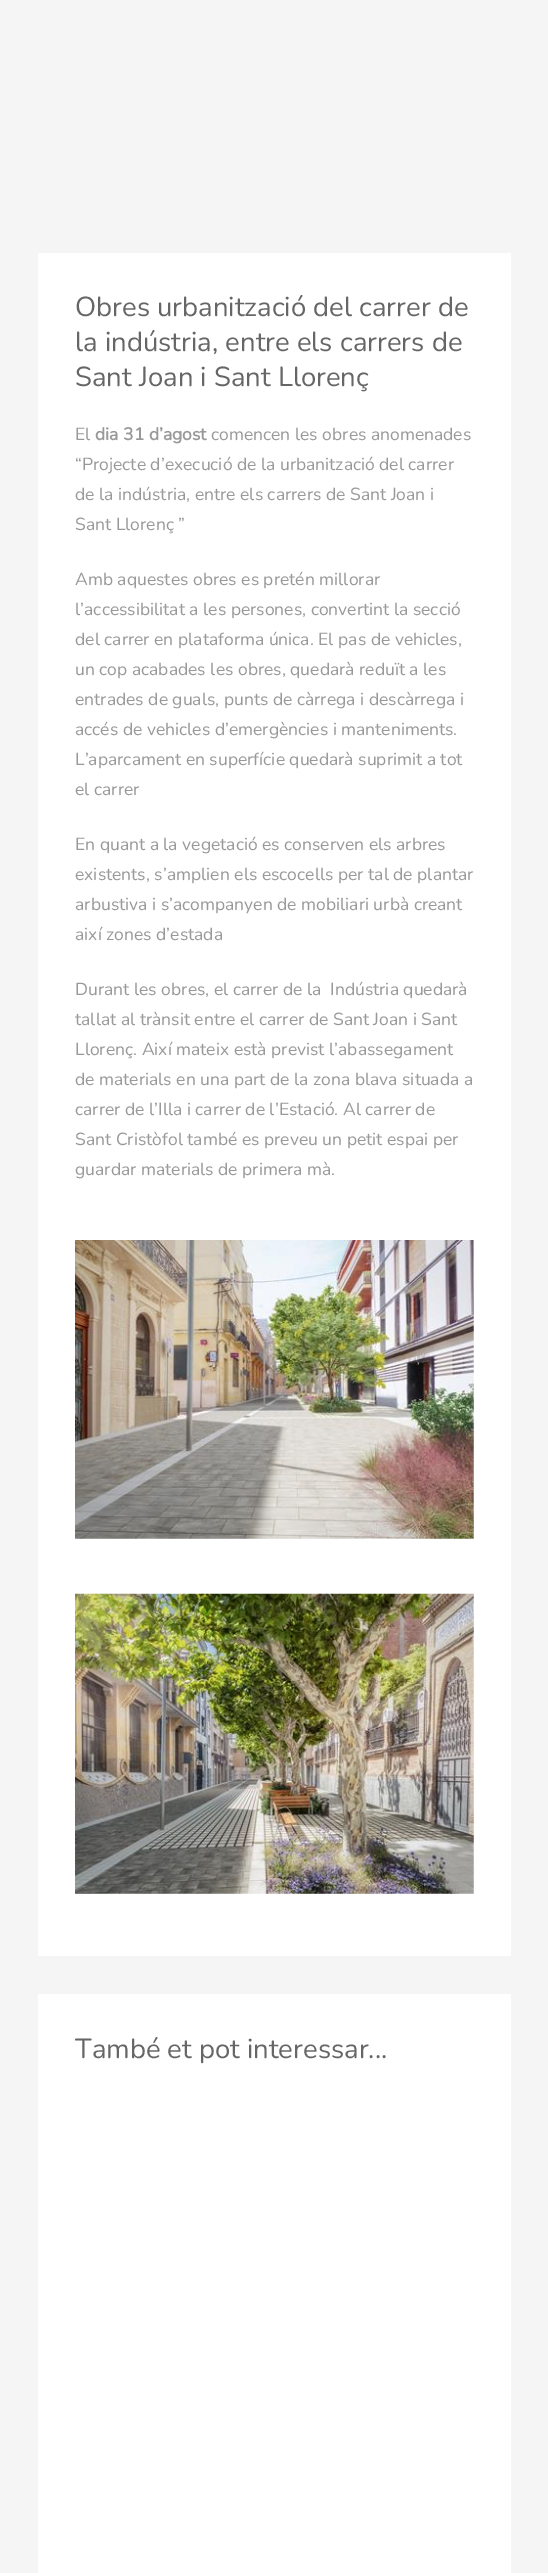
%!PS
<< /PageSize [548 2573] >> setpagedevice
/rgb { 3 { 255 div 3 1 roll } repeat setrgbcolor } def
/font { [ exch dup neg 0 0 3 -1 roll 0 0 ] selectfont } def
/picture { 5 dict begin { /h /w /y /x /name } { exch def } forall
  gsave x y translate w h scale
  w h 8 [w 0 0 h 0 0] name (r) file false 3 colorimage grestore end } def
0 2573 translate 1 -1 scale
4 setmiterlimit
245 245 245 rgb
0 0 548 2573 rectfill
255 255 255 rgb
38 253 473 1703 rectfill
(img/1.rgb) 75 1240 399 299 picture
(img/2.rgb) 75 1593 399 301 picture
38 1994 473 579 rectfill
/Nunito-ExtraLight 27.5 font
102 102 102 rgb
[
  [(Obres urbanització del carrer de) 75 316]
  [(la indústria, entre els carrers de) 75 351]
  [(Sant Joan i Sant Llorenç) 75 386]
] { aload pop moveto show } forall
/Nunito-ExtraLight 17.5 font
153 153 153 rgb
75 440 moveto (El) show
/Nunito-Bold 17.5 font
95 440 moveto (dia 31 d’agost) show
/Nunito-ExtraLight 17.5 font
[
  [(comencen les obres anomenades) 211 440]
  [(“Projecte d’execució de la urbanització del carrer) 75 470]
  [(de la indústria, entre els carrers de Sant Joan i) 75 500]
  [(Sant Llorenç ”) 75 530]
  [(Amb aquestes obres es pretén millorar) 75 585]
  [(l’accessibilitat a les persones, convertint la secció) 75 615]
  [(del carrer en plataforma única. El pas de vehicles,) 75 645]
  [(un cop acabades les obres, quedarà reduït a les) 75 675]
  [(entrades de guals, punts de càrrega i descàrrega i) 75 705]
  [(accés de vehicles d’emergències i manteniments.) 75 735]
  [(L’aparcament en superfície quedarà suprimit a tot) 75 765]
  [(el carrer) 75 795]
  [(En quant a la vegetació es conserven els arbres) 75 850]
  [(existents, s’amplien els escocells per tal de plantar) 75 880]
  [(arbustiva i s’acompanyen de mobiliari urbà creant) 75 910]
  [(així zones d’estada) 75 940]
  [(Durant les obres, el carrer de la  Indústria quedarà) 75 995]
  [(tallat al trànsit entre el carrer de Sant Joan i Sant) 75 1025]
  [(Llorenç. Així mateix està previst l’abassegament) 75 1055]
  [(de materials en una part de la zona blava situada a) 75 1085]
  [(carrer de l’Illa i carrer de l’Estació. Al carrer de) 75 1115]
  [(Sant Cristòfol també es preveu un petit espai per) 75 1145]
  [(guardar materials de primera mà.) 75 1175]
] { aload pop moveto show } forall
/Nunito-ExtraLight 27.5 font
102 102 102 rgb
75 2058 moveto (També et pot interessar...) show
showpage
